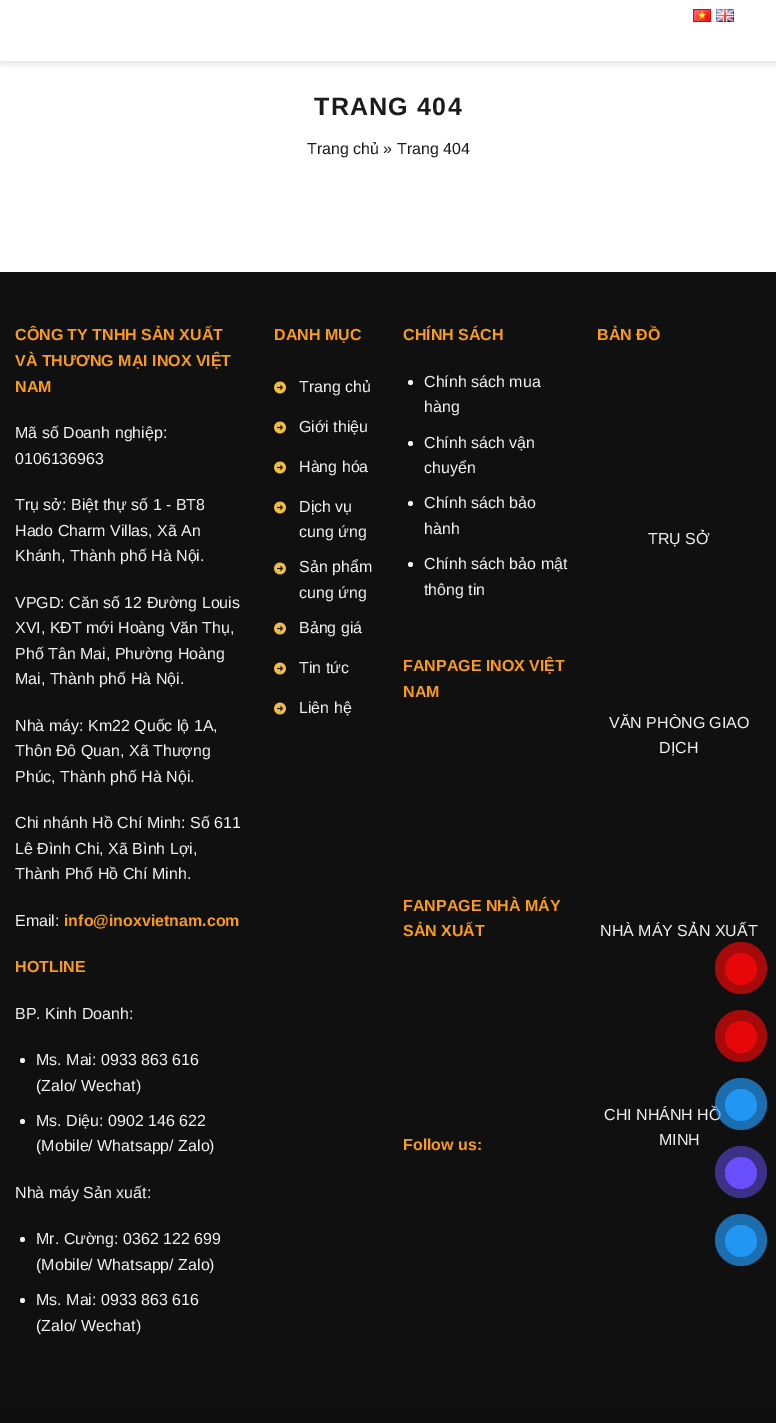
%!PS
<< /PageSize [776 1423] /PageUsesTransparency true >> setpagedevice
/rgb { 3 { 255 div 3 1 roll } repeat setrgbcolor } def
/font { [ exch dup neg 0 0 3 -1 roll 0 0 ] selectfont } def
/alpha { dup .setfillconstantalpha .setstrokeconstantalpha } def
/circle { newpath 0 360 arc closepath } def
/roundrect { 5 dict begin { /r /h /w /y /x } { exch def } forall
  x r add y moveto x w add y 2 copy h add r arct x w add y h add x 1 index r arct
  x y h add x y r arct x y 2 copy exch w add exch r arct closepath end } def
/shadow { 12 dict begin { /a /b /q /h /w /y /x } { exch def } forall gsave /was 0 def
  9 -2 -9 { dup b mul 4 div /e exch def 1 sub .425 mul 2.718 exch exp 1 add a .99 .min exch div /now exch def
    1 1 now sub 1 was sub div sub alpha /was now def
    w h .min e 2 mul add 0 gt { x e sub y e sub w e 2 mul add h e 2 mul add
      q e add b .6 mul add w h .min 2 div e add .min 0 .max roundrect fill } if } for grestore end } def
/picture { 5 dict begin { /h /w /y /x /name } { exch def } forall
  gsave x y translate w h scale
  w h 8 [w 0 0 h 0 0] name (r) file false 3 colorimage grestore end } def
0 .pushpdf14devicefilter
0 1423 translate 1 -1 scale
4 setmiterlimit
255 255 255 rgb
0 0 776 1423 rectfill
gsave
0 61 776 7 rectclip
0 0 0 rgb
1 -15 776 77 0 5 0.15 shadow
grestore
(img/1.rgb) 693 9 18 13 picture
(img/2.rgb) 716 9 18 13 picture
16 16 16 rgb
0 272 776 1132 rectfill
241 241 241 rgb
22.5 1060.5 2.5 circle fill
22.5 1121.5 2.5 circle fill
22.5 1239.5 2.5 circle fill
22.5 1300.5 2.5 circle fill
(img/3.rgb) 274 381 12 13 picture
(img/3.rgb) 274 421 12 13 picture
(img/3.rgb) 274 461 12 13 picture
(img/3.rgb) 274 501 12 13 picture
(img/3.rgb) 274 562 12 13 picture
(img/3.rgb) 274 622 12 13 picture
(img/3.rgb) 274 662 12 13 picture
(img/3.rgb) 274 702 12 13 picture
410.5 382.5 2.5 circle fill
410.5 443.5 2.5 circle fill
410.5 503.5 2.5 circle fill
410.5 564.5 2.5 circle fill
15 14 14 rgb
0 1404 776 19 rectfill
166 10 10 rgb
741 968 26 circle fill
230 8 8 rgb
741 969 16 circle fill
166 10 10 rgb
741 1036 26 circle fill
230 8 8 rgb
741 1037 16 circle fill
61 48 135 rgb
741 1172 26 circle fill
106 79 254 rgb
741 1173 16 circle fill
28 110 175 rgb
741 1240 26 circle fill
33 150 243 rgb
741 1241 16 circle fill
/LiberationSans-Bold 25 font
27 27 27 rgb
314 115 moveto 1.25 0 (TRANG 404) ashow
/LiberationSans-Regular 16 font
307 154 moveto (Trang chủ » Trang 404) show
/LiberationSans-Bold 16 font
249 155 28 rgb
[
  [(CÔNG TY TNHH SẢN XUẤT) 15 340]
  [(VÀ THƯƠNG MẠI INOX VIỆT) 15 366]
  [(NAM) 15 392]
] { aload pop moveto show } forall
/LiberationSans-Regular 16 font
241 241 241 rgb
[
  [(Mã số Doanh nghiệp:) 15 438]
  [(0106136963) 15 464]
  [(Trụ sở: Biệt thự số 1 - BT8) 15 510]
  [(Hado Charm Villas, Xã An) 15 536]
  [(Khánh, Thành phố Hà Nội.) 15 561]
  [(VPGD: Căn số 12 Đường Louis) 15 608]
  [(XVI, KĐT mới Hoàng Văn Thụ,) 15 633]
  [(Phố Tân Mai, Phường Hoàng) 15 659]
  [(Mai, Thành phố Hà Nội.) 15 684]
  [(Nhà máy: Km22 Quốc lộ 1A,) 15 731]
  [(Thôn Đô Quan, Xã Thượng) 15 756]
  [(Phúc, Thành phố Hà Nội.) 15 782]
  [(Chi nhánh Hồ Chí Minh: Số 611) 15 828]
  [(Lê Đình Chi, Xã Bình Lợi,) 15 854]
  [(Thành Phố Hồ Chí Minh.) 15 879]
  [(Email:) 15 926]
] { aload pop moveto show } forall
/LiberationSans-Bold 16 font
249 155 28 rgb
64 926 moveto (info@inoxvietnam.com) show
15 972 moveto (HOTLINE) show
/LiberationSans-Regular 16 font
241 241 241 rgb
[
  [(BP. Kinh Doanh:) 15 1019]
  [(Ms. Mai: 0933 863 616) 36 1065]
  [(\(Zalo/ Wechat\)) 36 1091]
  [(Ms. Diệu: 0902 146 622) 36 1126]
  [(\(Mobile/ Whatsapp/ Zalo\)) 36 1151]
  [(Nhà máy Sản xuất:) 15 1198]
  [(Mr. Cường: 0362 122 699) 36 1244]
  [(\(Mobile/ Whatsapp/ Zalo\)) 36 1270]
  [(Ms. Mai: 0933 863 616) 36 1305]
  [(\(Zalo/ Wechat\)) 36 1331]
] { aload pop moveto show } forall
/LiberationSans-Bold 16 font
249 155 28 rgb
274 340 moveto (DANH MỤC) show
/LiberationSans-Regular 16 font
241 241 241 rgb
[
  [(Trang chủ) 299 392]
  [(Giới thiệu) 299 432]
  [(Hàng hóa) 299 472]
  [(Dịch vụ) 299 512]
  [(cung ứng) 299 537]
  [(Sản phẩm) 299 572]
  [(cung ứng) 299 598]
  [(Bảng giá) 299 633]
  [(Tin tức) 299 673]
  [(Liên hệ) 299 713]
] { aload pop moveto show } forall
/LiberationSans-Bold 16 font
249 155 28 rgb
403 340 moveto (CHÍNH SÁCH) show
/LiberationSans-Regular 16 font
241 241 241 rgb
[
  [(Chính sách mua) 424 387]
  [(hàng) 424 412]
  [(Chính sách vận) 424 448]
  [(chuyển) 424 473]
  [(Chính sách bảo) 424 508]
  [(hành) 424 534]
  [(Chính sách bảo mật) 424 569]
  [(thông tin) 424 595]
] { aload pop moveto show } forall
/LiberationSans-Bold 16 font
249 155 28 rgb
[
  [(FANPAGE INOX VIỆT) 403 671]
  [(NAM) 403 697]
  [(FANPAGE NHÀ MÁY) 403 911]
  [(SẢN XUẤT) 403 936]
  [(Follow us:) 403 1150]
  [(BẢN ĐỒ) 597 340]
] { aload pop moveto show } forall
/LiberationSans-Regular 16 font
241 241 241 rgb
[
  [(TRỤ SỞ) 648 544]
  [(VĂN PHÒNG GIAO) 609 728]
  [(DỊCH) 659 753]
  [(NHÀ MÁY SẢN XUẤT) 600 936]
  [(CHI NHÁNH HỒ) 604 1120]
  [(MINH) 659 1145]
] { aload pop moveto show } forall
0.7 alpha
33 150 243 rgb
741 1104 26 circle fill
1 alpha
741 1105 16 circle fill
.poppdf14devicefilter showpage
